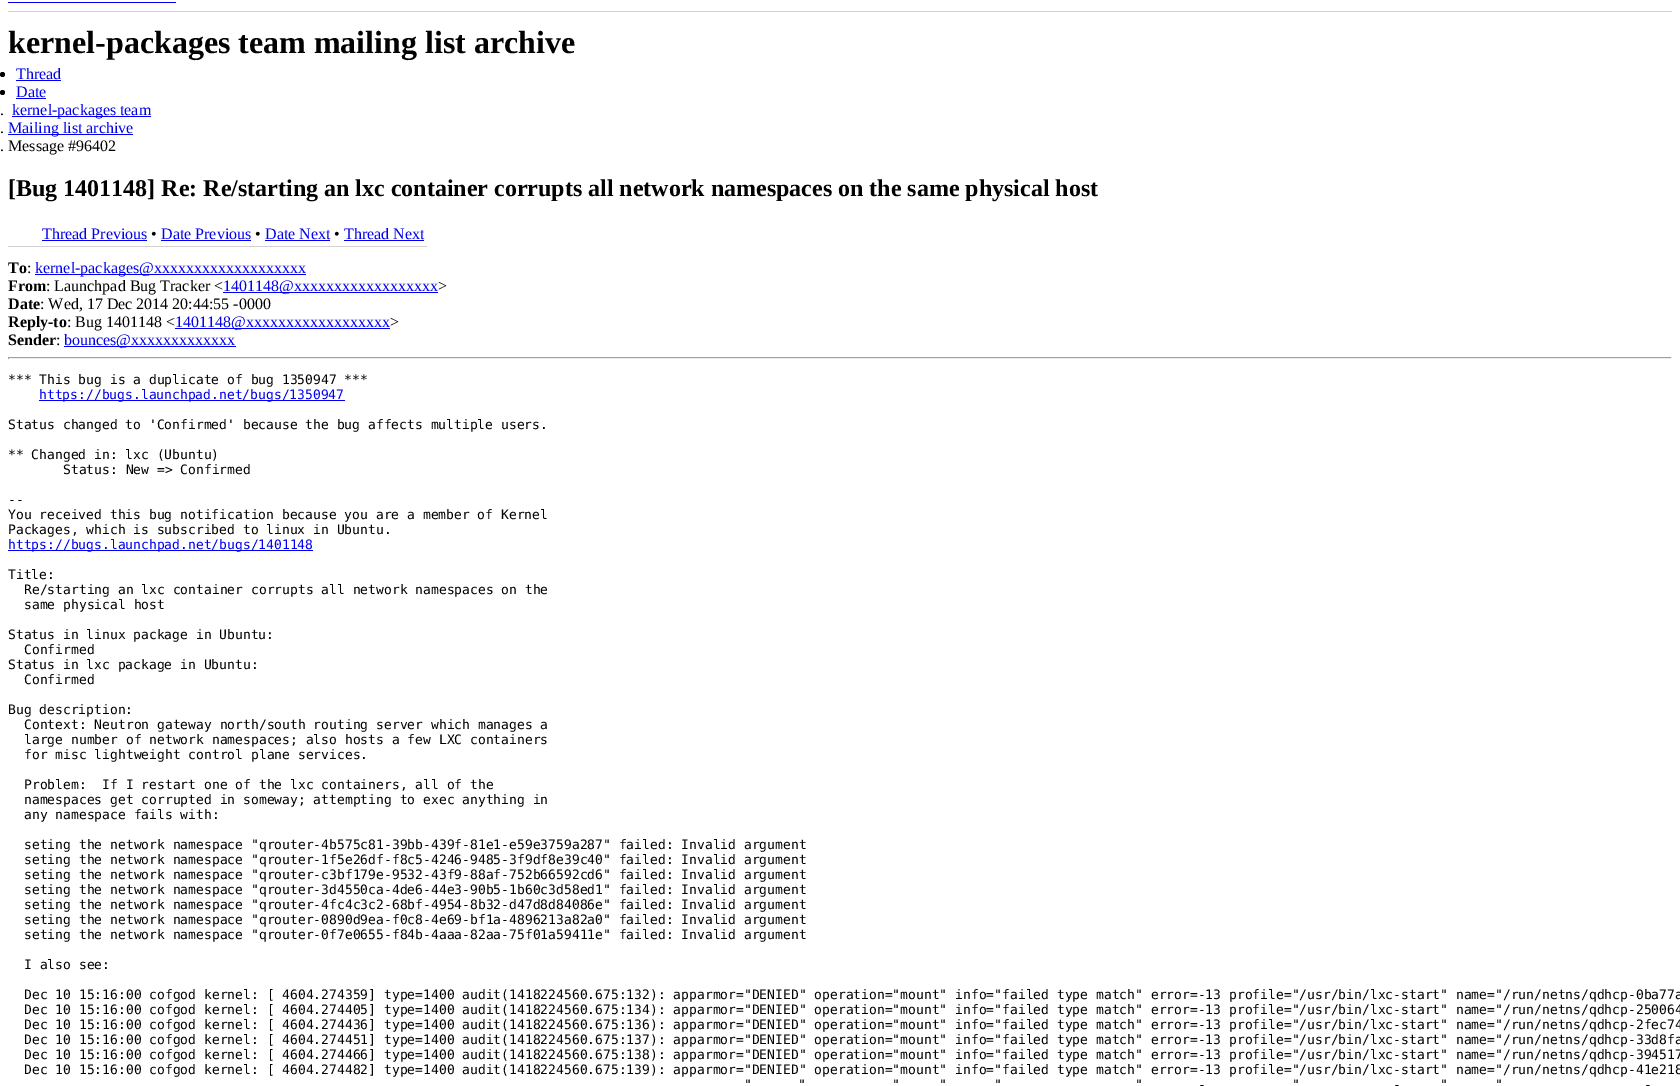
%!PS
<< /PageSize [1680 1086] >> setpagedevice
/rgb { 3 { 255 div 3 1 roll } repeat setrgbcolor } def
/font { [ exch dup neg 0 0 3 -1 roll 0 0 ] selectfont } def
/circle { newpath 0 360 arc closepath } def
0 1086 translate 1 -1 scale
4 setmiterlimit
255 255 255 rgb
0 0 1680 1086 rectfill
210 210 210 rgb
8 11 1664 1 rectfill
0 0 238 rgb
8 2 168 1 rectfill
0 0 0 rgb
2.5 74.5 2.5 circle fill
0 0 238 rgb
16 80 45 1 rectfill
0 0 0 rgb
2.5 92.5 2.5 circle fill
[
  [16 98 30 1 0 0 238]
  [12 116 139 1 0 0 238]
  [8 134 125 1 0 0 238]
  [8 246 419 1 210 210 210]
  [42 240 105 1 0 0 238]
  [161 240 90 1 0 0 238]
  [265 240 65 1 0 0 238]
  [344 240 80 1 0 0 238]
  [35 274 271 1 0 0 238]
  [223 292 215 1 0 0 238]
  [175 328 215 1 0 0 238]
  [64 346 172 1 0 0 238]
  [8 357 1664 1 159 159 159]
  [1671 357 1 2 238 238 238]
  [8 358 1664 1 238 238 238]
  [8 357 1 2 159 159 159]
  [39 400 306 1 0 0 238]
  [8 550 305 1 0 0 238]
] { aload pop rgb rectfill } forall
/LiberationSerif-Bold 32 font
0 0 0 rgb
8 53 moveto (kernel-packages team mailing list archive) show
/LiberationSerif-Regular 16 font
0 0 238 rgb
16 79 moveto (Thread) show
16 97 moveto (Date) show
0 0 0 rgb
0 115 moveto (.) show
0 0 238 rgb
12 115 moveto (kernel-packages team) show
0 0 0 rgb
0 133 moveto (.) show
0 0 238 rgb
8 133 moveto (Mailing list archive) show
0 0 0 rgb
0 151 moveto (. Message #96402) show
/LiberationSerif-Bold 24 font
8 196 moveto ([Bug 1401148] Re: Re/starting an lxc container corrupts all network namespaces on the same physical host) show
/LiberationSerif-Regular 16 font
0 0 238 rgb
42 239 moveto (Thread Previous) show
0 0 0 rgb
151 239 moveto (•) show
0 0 238 rgb
161 239 moveto (Date Previous) show
0 0 0 rgb
255 239 moveto (•) show
0 0 238 rgb
265 239 moveto (Date Next) show
0 0 0 rgb
334 239 moveto (•) show
0 0 238 rgb
344 239 moveto (Thread Next) show
/LiberationSerif-Bold 16 font
0 0 0 rgb
8 273 moveto (To) show
/LiberationSerif-Regular 16 font
27 273 moveto (:) show
0 0 238 rgb
35 273 moveto (kernel-packages@xxxxxxxxxxxxxxxxxxx) show
/LiberationSerif-Bold 16 font
0 0 0 rgb
8 291 moveto (From) show
/LiberationSerif-Regular 16 font
46 291 moveto (: Launchpad Bug Tracker <) show
0 0 238 rgb
223 291 moveto (1401148@xxxxxxxxxxxxxxxxxx) show
0 0 0 rgb
438 291 moveto (>) show
/LiberationSerif-Bold 16 font
8 309 moveto (Date) show
/LiberationSerif-Regular 16 font
40 309 moveto (: Wed, 17 Dec 2014 20:44:55 -0000) show
/LiberationSerif-Bold 16 font
8 327 moveto (Reply-to) show
/LiberationSerif-Regular 16 font
67 327 moveto (: Bug 1401148 <) show
0 0 238 rgb
175 327 moveto (1401148@xxxxxxxxxxxxxxxxxx) show
0 0 0 rgb
390 327 moveto (>) show
/LiberationSerif-Bold 16 font
8 345 moveto (Sender) show
/LiberationSerif-Regular 16 font
56 345 moveto (:) show
0 0 238 rgb
64 345 moveto (bounces@xxxxxxxxxxxxx) show
/DejaVuSansMono-Regular 13 font
0 0 0 rgb
8 384 moveto (*** This bug is a duplicate of bug 1350947 ***) show
0 0 238 rgb
39 399 moveto (https://bugs.launchpad.net/bugs/1350947) show
0 0 0 rgb
[
  [(Status changed to 'Confirmed' because the bug affects multiple users.) 8 429]
  [(** Changed in: lxc \(Ubuntu\)) 8 459]
  [(Status: New => Confirmed) 63 474]
  [(--) 8 504]
  [(You received this bug notification because you are a member of Kernel) 8 519]
  [(Packages, which is subscribed to linux in Ubuntu.) 8 534]
] { aload pop moveto show } forall
0 0 238 rgb
8 549 moveto (https://bugs.launchpad.net/bugs/1401148) show
0 0 0 rgb
[
  [(Title:) 8 579]
  [(Re/starting an lxc container corrupts all network namespaces on the) 24 594]
  [(same physical host) 24 609]
  [(Status in linux package in Ubuntu:) 8 639]
  [(Confirmed) 24 654]
  [(Status in lxc package in Ubuntu:) 8 669]
  [(Confirmed) 24 684]
  [(Bug description:) 8 714]
  [(Context: Neutron gateway north/south routing server which manages a) 24 729]
  [(large number of network namespaces; also hosts a few LXC containers) 24 744]
  [(for misc lightweight control plane services.) 24 759]
  [(Problem:  If I restart one of the lxc containers, all of the) 24 789]
  [(namespaces get corrupted in someway; attempting to exec anything in) 24 804]
  [(any namespace fails with:) 24 819]
  [(seting the network namespace "qrouter-4b575c81-39bb-439f-81e1-e59e3759a287" failed: Invalid argument) 24 849]
  [(seting the network namespace "qrouter-1f5e26df-f8c5-4246-9485-3f9df8e39c40" failed: Invalid argument) 24 864]
  [(seting the network namespace "qrouter-c3bf179e-9532-43f9-88af-752b66592cd6" failed: Invalid argument) 24 879]
  [(seting the network namespace "qrouter-3d4550ca-4de6-44e3-90b5-1b60c3d58ed1" failed: Invalid argument) 24 894]
  [(seting the network namespace "qrouter-4fc4c3c2-68bf-4954-8b32-d47d8d84086e" failed: Invalid argument) 24 909]
  [(seting the network namespace "qrouter-0890d9ea-f0c8-4e69-bf1a-4896213a82a0" failed: Invalid argument) 24 924]
  [(seting the network namespace "qrouter-0f7e0655-f84b-4aaa-82aa-75f01a59411e" failed: Invalid argument) 24 939]
  [(I also see:) 24 969]
  [(Dec 10 15:16:00 cofgod kernel: [ 4604.274359] type=1400 audit\(1418224560.675:132\): apparmor="DENIED" operation="mount" info="failed type match" error=-13 profile="/usr/bin/lxc-start" name="/run/netns/qdhcp-0ba77a) 24 999]
  [(Dec 10 15:16:00 cofgod kernel: [ 4604.274405] type=1400 audit\(1418224560.675:134\): apparmor="DENIED" operation="mount" info="failed type match" error=-13 profile="/usr/bin/lxc-start" name="/run/netns/qdhcp-250064) 24 1014]
  [(Dec 10 15:16:00 cofgod kernel: [ 4604.274436] type=1400 audit\(1418224560.675:136\): apparmor="DENIED" operation="mount" info="failed type match" error=-13 profile="/usr/bin/lxc-start" name="/run/netns/qdhcp-2fec74) 24 1029]
  [(Dec 10 15:16:00 cofgod kernel: [ 4604.274451] type=1400 audit\(1418224560.675:137\): apparmor="DENIED" operation="mount" info="failed type match" error=-13 profile="/usr/bin/lxc-start" name="/run/netns/qdhcp-33d8fa) 24 1044]
  [(Dec 10 15:16:00 cofgod kernel: [ 4604.274466] type=1400 audit\(1418224560.675:138\): apparmor="DENIED" operation="mount" info="failed type match" error=-13 profile="/usr/bin/lxc-start" name="/run/netns/qdhcp-394517) 24 1059]
  [(Dec 10 15:16:00 cofgod kernel: [ 4604.274482] type=1400 audit\(1418224560.675:139\): apparmor="DENIED" operation="mount" info="failed type match" error=-13 profile="/usr/bin/lxc-start" name="/run/netns/qdhcp-41e218) 24 1074]
  [(") 744 1089]
  [(") 798 1089]
  [(") 892 1089]
  [(") 939 1089]
  [(") 994 1089]
  [(") 1135 1089]
  [(") 1292 1089]
  [(") 1440 1089]
  [(") 1495 1089]
  [(-) 1198 1089]
  [(-) 1393 1089]
  [(-) 1644 1089]
] { aload pop moveto show } forall
showpage
